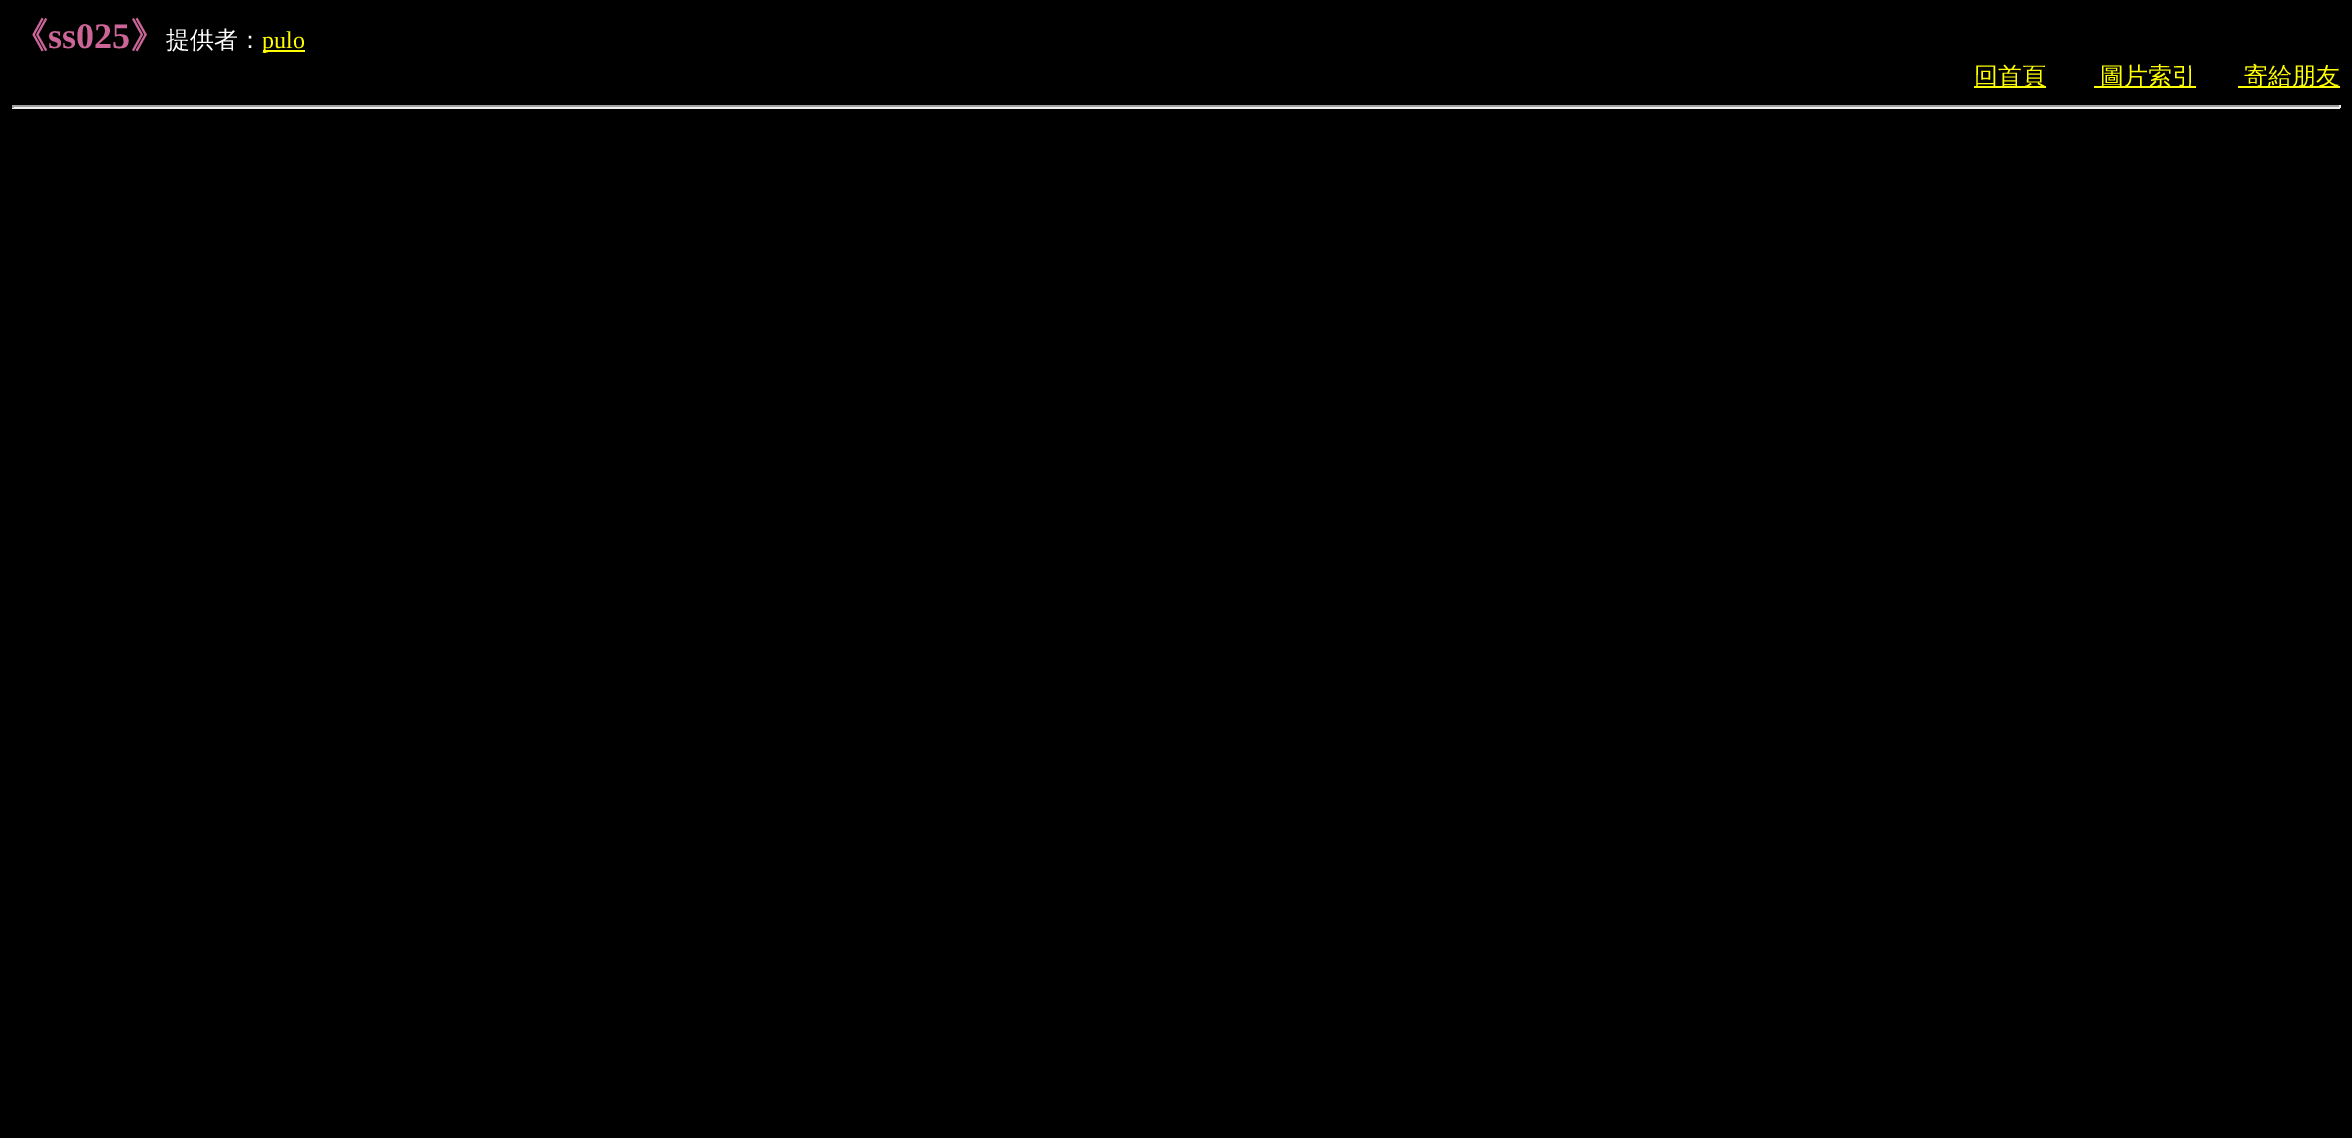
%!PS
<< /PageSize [2352 1138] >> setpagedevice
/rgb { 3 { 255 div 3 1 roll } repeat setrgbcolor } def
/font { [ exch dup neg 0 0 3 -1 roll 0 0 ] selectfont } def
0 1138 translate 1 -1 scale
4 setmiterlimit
0 0 0 rgb
0 0 2352 1138 rectfill
[
  [263 50 42 2 255 255 0]
  [1974 86 72 2 255 255 0]
  [2094 86 102 2 255 255 0]
  [2238 86 102 2 255 255 0]
  [12 105 2328 2 159 159 159]
  [2339 105 2 3 238 238 238]
  [12 107 2328 2 238 238 238]
  [12 105 2 3 159 159 159]
] { aload pop rgb rectfill } forall
/WenQuanYiZenHei-Bold 36 font
204 102 153 rgb
12 48 moveto (《) show
/LiberationSerif-Bold 36 font
48 48 moveto (ss025) show
/WenQuanYiZenHei-Bold 36 font
130 48 moveto (》) show
/WenQuanYiZenHei-Medium 24 font
255 255 255 rgb
166 48 moveto (提供者：) show
/LiberationSerif-Regular 24 font
255 255 0 rgb
262 48 moveto (pulo) show
/WenQuanYiZenHei-Medium 24 font
[
  [(回首頁) 1974 84]
  [(圖片索引) 2100 84]
  [(寄給朋友) 2244 84]
] { aload pop moveto show } forall
showpage
